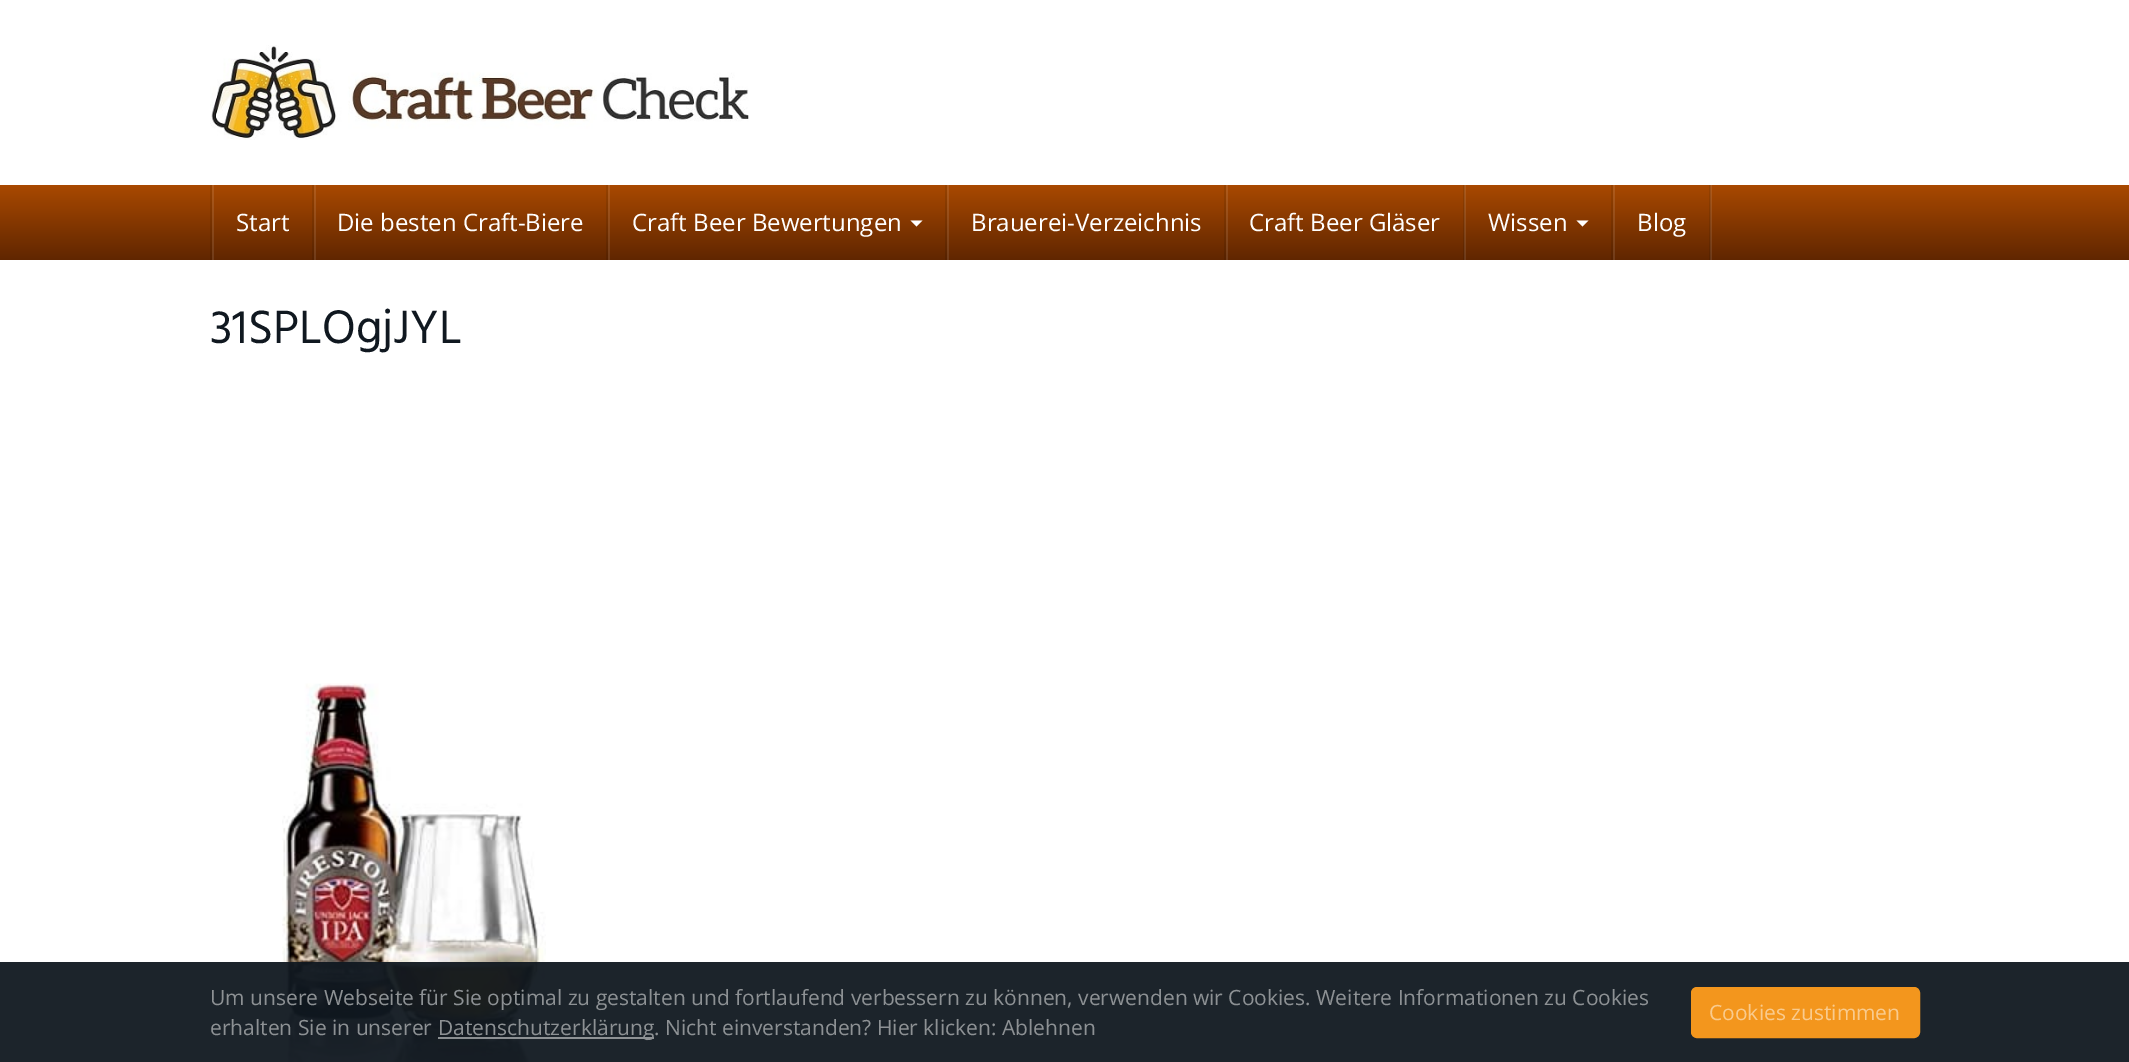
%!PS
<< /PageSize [2129 1062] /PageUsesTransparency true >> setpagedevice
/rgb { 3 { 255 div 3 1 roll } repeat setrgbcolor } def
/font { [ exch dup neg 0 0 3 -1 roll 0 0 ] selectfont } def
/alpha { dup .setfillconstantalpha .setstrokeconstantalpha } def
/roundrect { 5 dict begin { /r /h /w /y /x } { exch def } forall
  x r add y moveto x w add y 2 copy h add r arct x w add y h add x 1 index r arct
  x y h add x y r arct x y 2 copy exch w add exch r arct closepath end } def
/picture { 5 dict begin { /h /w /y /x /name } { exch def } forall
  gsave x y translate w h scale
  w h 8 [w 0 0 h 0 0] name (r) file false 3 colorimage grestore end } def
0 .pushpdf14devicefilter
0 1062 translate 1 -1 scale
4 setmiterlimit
255 255 255 rgb
0 0 2129 1062 rectfill
(img/1.rgb) 210 45 539 95 picture
gsave 0 185 moveto 2129 185 lineto 2129 260 lineto 0 260 lineto closepath clip newpath
<< /ShadingType 2 /ColorSpace /DeviceRGB /Coords [1065 184 1065 260] /Extend [true true] /Function << /FunctionType 2 /Domain [0 1] /C0 [0.667 0.29 0] /C1 [0.376 0.149 0] /N 1 >> >> shfill grestore
gsave 1613 185 moveto 1615 185 lineto 1615 260 lineto 1613 260 lineto closepath clip newpath
<< /ShadingType 2 /ColorSpace /DeviceRGB /Coords [1065 184 1065 260] /Extend [true true] /Function << /FunctionType 2 /Domain [0 1] /C0 [0.702 0.361 0.102] /C1 [0.439 0.235 0.102] /N 1 >> >> shfill grestore
gsave 1709 185 moveto 1710 185 lineto 1710 260 lineto 1709 260 lineto closepath clip newpath
<< /ShadingType 2 /ColorSpace /DeviceRGB /Coords [1065 184 1065 260] /Extend [true true] /Function << /FunctionType 2 /Domain [0 1] /C0 [0.6 0.263 0] /C1 [0.337 0.133 0] /N 1 >> >> shfill grestore
gsave 1465 185 moveto 1466 185 lineto 1466 260 lineto 1465 260 lineto closepath clip newpath
<< /ShadingType 2 /ColorSpace /DeviceRGB /Coords [1065 184 1065 260] /Extend [true true] /Function << /FunctionType 2 /Domain [0 1] /C0 [0.702 0.361 0.102] /C1 [0.439 0.235 0.102] /N 1 >> >> shfill grestore
gsave 1611 185 moveto 1613 185 lineto 1613 260 lineto 1611 260 lineto closepath clip newpath
<< /ShadingType 2 /ColorSpace /DeviceRGB /Coords [1065 184 1065 260] /Extend [true true] /Function << /FunctionType 2 /Domain [0 1] /C0 [0.6 0.263 0] /C1 [0.337 0.133 0] /N 1 >> >> shfill grestore
gsave 1226 185 moveto 1228 185 lineto 1228 260 lineto 1226 260 lineto closepath clip newpath
<< /ShadingType 2 /ColorSpace /DeviceRGB /Coords [1065 184 1065 260] /Extend [true true] /Function << /FunctionType 2 /Domain [0 1] /C0 [0.702 0.361 0.102] /C1 [0.439 0.235 0.102] /N 1 >> >> shfill grestore
gsave 1463 185 moveto 1464 185 lineto 1464 260 lineto 1463 260 lineto closepath clip newpath
<< /ShadingType 2 /ColorSpace /DeviceRGB /Coords [1065 184 1065 260] /Extend [true true] /Function << /FunctionType 2 /Domain [0 1] /C0 [0.6 0.263 0] /C1 [0.337 0.133 0] /N 1 >> >> shfill grestore
gsave 1464 185 moveto 1465 185 lineto 1465 260 lineto 1464 260 lineto closepath clip newpath
<< /ShadingType 2 /ColorSpace /DeviceRGB /Coords [1065 184 1065 260] /Extend [true true] /Function << /FunctionType 2 /Domain [0 1] /C0 [0.639 0.337 0.102] /C1 [0.404 0.22 0.102] /N 1 >> >> shfill grestore
gsave 947 185 moveto 949 185 lineto 949 260 lineto 947 260 lineto closepath clip newpath
<< /ShadingType 2 /ColorSpace /DeviceRGB /Coords [1065 184 1065 260] /Extend [true true] /Function << /FunctionType 2 /Domain [0 1] /C0 [0.702 0.361 0.102] /C1 [0.439 0.235 0.102] /N 1 >> >> shfill grestore
gsave 1224 185 moveto 1226 185 lineto 1226 260 lineto 1224 260 lineto closepath clip newpath
<< /ShadingType 2 /ColorSpace /DeviceRGB /Coords [1065 184 1065 260] /Extend [true true] /Function << /FunctionType 2 /Domain [0 1] /C0 [0.6 0.263 0] /C1 [0.337 0.133 0] /N 1 >> >> shfill grestore
gsave 608 185 moveto 610 185 lineto 610 260 lineto 608 260 lineto closepath clip newpath
<< /ShadingType 2 /ColorSpace /DeviceRGB /Coords [1065 184 1065 260] /Extend [true true] /Function << /FunctionType 2 /Domain [0 1] /C0 [0.702 0.361 0.102] /C1 [0.439 0.235 0.102] /N 1 >> >> shfill grestore
gsave 945 185 moveto 947 185 lineto 947 260 lineto 945 260 lineto closepath clip newpath
<< /ShadingType 2 /ColorSpace /DeviceRGB /Coords [1065 184 1065 260] /Extend [true true] /Function << /FunctionType 2 /Domain [0 1] /C0 [0.6 0.263 0] /C1 [0.337 0.133 0] /N 1 >> >> shfill grestore
gsave 314 185 moveto 316 185 lineto 316 260 lineto 314 260 lineto closepath clip newpath
<< /ShadingType 2 /ColorSpace /DeviceRGB /Coords [1065 184 1065 260] /Extend [true true] /Function << /FunctionType 2 /Domain [0 1] /C0 [0.702 0.361 0.102] /C1 [0.439 0.235 0.102] /N 1 >> >> shfill grestore
gsave 606 185 moveto 608 185 lineto 608 260 lineto 606 260 lineto closepath clip newpath
<< /ShadingType 2 /ColorSpace /DeviceRGB /Coords [1065 184 1065 260] /Extend [true true] /Function << /FunctionType 2 /Domain [0 1] /C0 [0.6 0.263 0] /C1 [0.337 0.133 0] /N 1 >> >> shfill grestore
gsave 212 185 moveto 214 185 lineto 214 260 lineto 212 260 lineto closepath clip newpath
<< /ShadingType 2 /ColorSpace /DeviceRGB /Coords [1065 184 1065 260] /Extend [true true] /Function << /FunctionType 2 /Domain [0 1] /C0 [0.702 0.361 0.102] /C1 [0.439 0.235 0.102] /N 1 >> >> shfill grestore
gsave 312 185 moveto 314 185 lineto 314 260 lineto 312 260 lineto closepath clip newpath
<< /ShadingType 2 /ColorSpace /DeviceRGB /Coords [1065 184 1065 260] /Extend [true true] /Function << /FunctionType 2 /Domain [0 1] /C0 [0.6 0.263 0] /C1 [0.337 0.133 0] /N 1 >> >> shfill grestore
gsave 210 185 moveto 212 185 lineto 212 260 lineto 210 260 lineto closepath clip newpath
<< /ShadingType 2 /ColorSpace /DeviceRGB /Coords [1065 184 1065 260] /Extend [true true] /Function << /FunctionType 2 /Domain [0 1] /C0 [0.6 0.263 0] /C1 [0.337 0.133 0] /N 1 >> >> shfill grestore
gsave 1711 185 moveto 1712 185 lineto 1712 260 lineto 1711 260 lineto closepath clip newpath
<< /ShadingType 2 /ColorSpace /DeviceRGB /Coords [1065 184 1065 260] /Extend [true true] /Function << /FunctionType 2 /Domain [0 1] /C0 [0.702 0.361 0.102] /C1 [0.439 0.235 0.102] /N 1 >> >> shfill grestore
gsave 1710 185 moveto 1711 185 lineto 1711 260 lineto 1710 260 lineto closepath clip newpath
<< /ShadingType 2 /ColorSpace /DeviceRGB /Coords [1065 184 1065 260] /Extend [true true] /Function << /FunctionType 2 /Domain [0 1] /C0 [0.631 0.325 0.09] /C1 [0.396 0.212 0.09] /N 1 >> >> shfill grestore
910.5 220.5 moveto 922.5 220.5 lineto 916.5 226.5 lineto closepath fill
1576.5 220.5 moveto 1588.5 220.5 lineto 1582.5 226.5 lineto closepath fill
(img/2.rgb) 282 683 264 379 picture
0.95 alpha
16 24 32 rgb
0 962 2129 100 rectfill
0.5 alpha
255 255 255 rgb
438 1037 216 2 rectfill
1 alpha
243 150 29 rgb
1692 988 227 49 5 roundrect gsave fill grestore
2 setlinewidth
stroke
/OpenSans-Regular 24 font
255 255 255 rgb
[
  [(Start) 236 231]
  [(Die besten Craft-Biere) 337 231]
  [(Craft Beer Bewertungen) 632 231]
  [(Brauerei-Verzeichnis) 971 231]
  [(Craft Beer Gläser) 1249 231]
  [(Wissen) 1488 231]
  [(Blog) 1637 231]
] { aload pop moveto show } forall
/Hind-Regular 48 font
16 24 32 rgb
210 343 moveto (31SPLOgjJYL) show
/OpenSans-Regular 21 font
141 145 148 rgb
[
  [(Um unsere Webseite für Sie optimal zu gestalten und fortlaufend verbessern zu können, verwenden wir Cookies. Weitere Informationen zu Cookies) 210 1005]
  [(erhalten Sie in unserer) 210 1035]
  [(Datenschutzerklärung) 438 1035]
  [(. Nicht einverstanden? Hier klicken: Ablehnen) 654 1035]
] { aload pop moveto show } forall
249 203 142 rgb
1709 1020 moveto (Cookies zustimmen) show
.poppdf14devicefilter showpage
